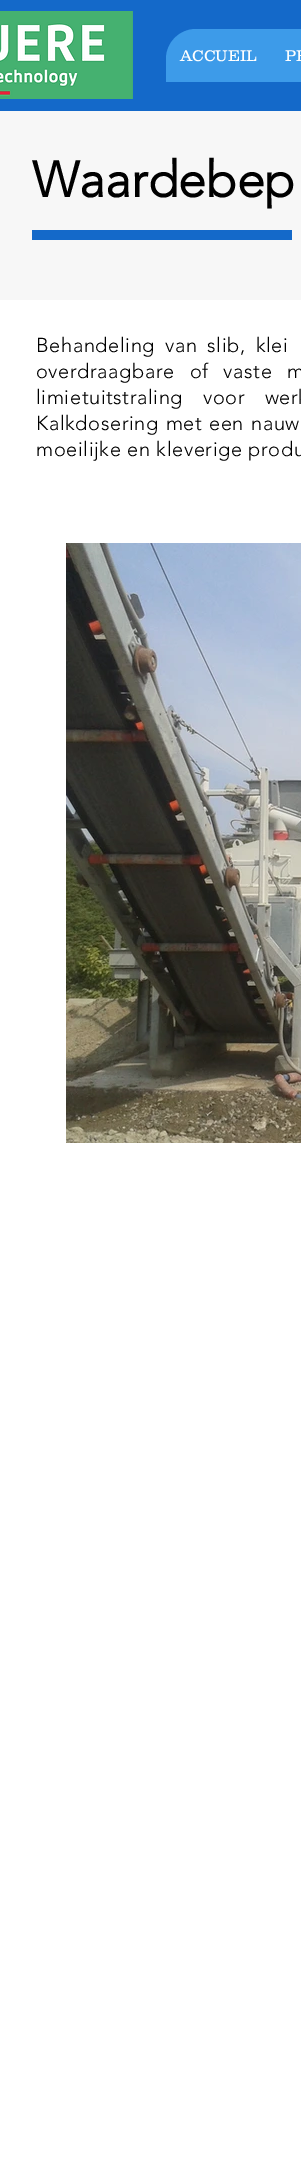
%!PS
<< /PageSize [301 2157] >> setpagedevice
/rgb { 3 { 255 div 3 1 roll } repeat setrgbcolor } def
/font { [ exch dup neg 0 0 3 -1 roll 0 0 ] selectfont } def
/picture { 5 dict begin { /h /w /y /x /name } { exch def } forall
  gsave x y translate w h scale
  w h 8 [w 0 0 h 0 0] name (r) file false 3 colorimage grestore end } def
0 2157 translate 1 -1 scale
4 setmiterlimit
255 255 255 rgb
0 0 301 2157 rectfill
20 105 201 rgb
0 0 301 111 rectfill
(img/1.rgb) 0 11 133 88 picture
61 155 233 rgb
196 29 moveto 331 29 lineto 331 52 lineto 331 68.5 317.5 82 301 82 curveto 166 82 lineto 166 59 lineto 166 42.5 179.5 29 196 29 curveto closepath fill
247 247 247 rgb
0 111 301 189 rectfill
20 105 201 rgb
32 230 260 10 rectfill
(img/2.rgb) 66 543 235 600 picture
/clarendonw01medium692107-Light 16 font
255 255 255 rgb
180 61 moveto (ACCUEIL) show
285 61 moveto (PR) show
/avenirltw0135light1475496-Bold 50 font
0 0 0 rgb
32 197 moveto (Waardebep) show
/avenirltw0135light1475496-Light 20 font
36 352 moveto 4 0 32 0.6 0 (Behandeling van slib, klei) awidthshow
36 378 moveto 9 0 32 0.6 0 (overdraagbare of vaste m) awidthshow
36 404 moveto 14 0 32 0.6 0 (limietuitstraling voor werk) awidthshow
36 430 moveto 1 0 32 0.6 0 (Kalkdosering met een nauw) awidthshow
36 456 moveto 0.6 0 (moeilijke en kleverige produ) ashow
showpage
